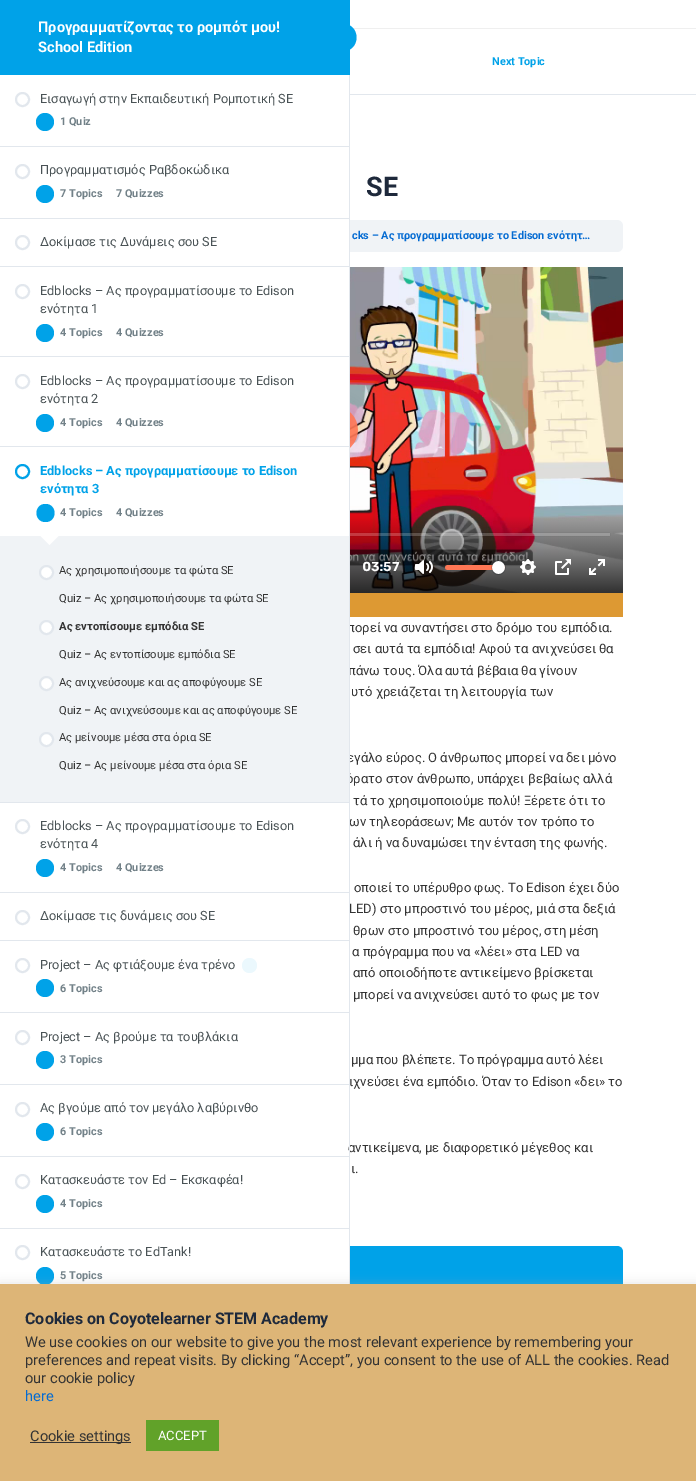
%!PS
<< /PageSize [696 1481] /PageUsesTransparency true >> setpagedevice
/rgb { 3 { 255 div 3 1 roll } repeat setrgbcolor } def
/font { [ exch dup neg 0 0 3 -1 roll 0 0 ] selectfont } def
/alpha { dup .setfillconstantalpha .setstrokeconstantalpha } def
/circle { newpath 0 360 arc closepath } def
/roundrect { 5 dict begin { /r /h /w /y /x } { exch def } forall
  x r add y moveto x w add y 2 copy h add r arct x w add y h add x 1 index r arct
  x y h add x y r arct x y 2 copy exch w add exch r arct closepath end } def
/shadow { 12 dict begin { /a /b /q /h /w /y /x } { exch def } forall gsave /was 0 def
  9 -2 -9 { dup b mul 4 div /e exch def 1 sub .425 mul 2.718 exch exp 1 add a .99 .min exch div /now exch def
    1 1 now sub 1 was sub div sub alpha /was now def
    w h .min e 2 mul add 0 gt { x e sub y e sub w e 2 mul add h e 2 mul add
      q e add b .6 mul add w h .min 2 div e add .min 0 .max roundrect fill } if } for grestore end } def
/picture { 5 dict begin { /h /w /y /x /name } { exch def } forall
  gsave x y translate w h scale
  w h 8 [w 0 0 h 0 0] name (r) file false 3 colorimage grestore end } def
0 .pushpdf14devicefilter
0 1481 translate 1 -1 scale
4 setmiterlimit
255 255 255 rgb
0 0 696 1481 rectfill
0 162 232 rgb
0 0 350 75 rectfill
239 239 239 rgb
352 28 344 1 rectfill
0 162 232 rgb
344 24 moveto 351 24 356.5 30 356.5 37.5 curveto 356.5 45 351 51 344 51 curveto 337 51 331.5 45 331.5 37.5 curveto 331.5 30 337 24 344 24 curveto closepath fill
226 231 237 rgb
0 146 349 1 rectfill
2 setlinewidth
22.5 99.5 6.5 circle stroke
0 162 232 rgb
45 122 9 circle fill
226 231 237 rgb
0 218 349 1 rectfill
22.5 171.5 6.5 circle stroke
0 162 232 rgb
45 194 9 circle fill
226 231 237 rgb
22.5 242.5 6.5 circle stroke
22.5 291.5 6.5 circle stroke
22.5 381.5 6.5 circle stroke
0 162 232 rgb
22.5 471.5 6.5 circle stroke
226 231 237 rgb
22.5 826.5 6.5 circle stroke
22.5 917.5 6.5 circle stroke
22.5 965.5 6.5 circle stroke
22.5 1037.5 6.5 circle stroke
22.5 1109.5 6.5 circle stroke
22.5 1181.5 6.5 circle stroke
22.5 1252.5 6.5 circle stroke
350 94 346 1 rectfill
240 243 246 rgb
44 220 579 32 6 roundrect fill
(img/1.rgb) 350 267 273 326 picture
221 153 51 rgb
350 593 273 24 rectfill
0 162 232 rgb
50 1246 moveto 617 1246 lineto 620.5 1246 623 1248.5 623 1252 curveto 623 1310 lineto 44 1310 lineto 44 1252 lineto 44 1248.5 46.5 1246 50 1246 curveto closepath fill
/Roboto-Bold 14.6 font
255 255 255 rgb
38 32 moveto (Προγραμματίζοντας το ρομπότ μου!) show
38 52 moveto (School Edition) show
/Roboto-Regular 12.75 font
73 82 85 rgb
40 103 moveto (Εισαγωγή στην Εκπαιδευτική Ρομποτική SE) show
/Roboto-Bold 10.9 font
114 129 136 rgb
60 125 moveto (1 Quiz) show
/Roboto-Regular 12.75 font
73 82 85 rgb
40 174 moveto (Προγραμματισμός Ραβδοκώδικα) show
/Roboto-Bold 10.9 font
114 129 136 rgb
60 197 moveto (7 Topics) show
116 197 moveto (7 Quizzes) show
0 162 232 rgb
492 65 moveto (Next Topic) show
/Roboto-Bold 27 font
30 41 59 rgb
366 196 moveto (SE) show
/Roboto-Bold 10.9 font
4 107 210 rgb
352 239 moveto (cks – Ας προγραμματίσουμε το Edison ενότητ…) show
/Roboto-Regular 13 font
51 51 51 rgb
[
  [(πορεί να συναντήσει στο δρόμο του εμπόδια.) 347 632]
  [(σει αυτά τα εμπόδια! Αφού τα ανιχνεύσει θα) 353 653]
  [(πάνω τους. Όλα αυτά βέβαια θα γίνουν) 348 675]
  [(υτό χρειάζεται τη λειτουργία των) 351 696]
  [(εγάλο εύρος. Ο άνθρωπος μπορεί να δει μόνο) 347 762]
  [(όρατο στον άνθρωπο, υπάρχει βεβαίως αλλά) 346 783]
] { aload pop moveto show } forall
255 255 255 rgb
44 220 305 1064 rectfill
240 243 246 rgb
0 536 349 266 rectfill
gsave
0 536 349 266 rectclip
255 255 255 rgb
40.5 536 moveto 49.5 526.5 lineto 58.5 536 lineto 49.5 545 lineto closepath fill
grestore
235 248 253 rgb
249.5 965.5 7.5 circle fill
255 255 255 rgb
46.5 739.5 6.5 circle gsave fill grestore
226 231 237 rgb
stroke
255 255 255 rgb
46.5 683.5 6.5 circle gsave fill grestore
226 231 237 rgb
stroke
255 255 255 rgb
46.5 627.5 6.5 circle gsave fill grestore
226 231 237 rgb
stroke
255 255 255 rgb
46.5 572.5 6.5 circle gsave fill grestore
226 231 237 rgb
stroke
/Roboto-Regular 11.2 font
51 51 51 rgb
[
  [(Quiz – Ας μείνουμε μέσα στα όρια SE) 59 769]
  [(Ας μείνουμε μέσα στα όρια SE) 59 741]
  [(Quiz – Ας ανιχνεύσουμε και ας αποφύγουμε SE) 59 714]
  [(Ας ανιχνεύσουμε και ας αποφύγουμε SE) 59 686]
  [(Quiz – Ας εντοπίσουμε εμπόδια SE) 59 658]
] { aload pop moveto show } forall
/Roboto-Bold 11.2 font
59 630 moveto (Ας εντοπίσουμε εμπόδια SE) show
/Roboto-Regular 11.2 font
59 602 moveto (Quiz – Ας χρησιμοποιήσουμε τα φώτα SE) show
59 574 moveto (Ας χρησιμοποιήσουμε τα φώτα SE) show
0 162 232 rgb
45.5 522 moveto 33.5 522 33.5 504 45.5 504 curveto 57.5 504 57.5 522 45.5 522 curveto closepath fill
/Roboto-Bold 10.9 font
114 129 136 rgb
60 1279 moveto (5 Topics) show
0 162 232 rgb
45 1276 9 circle fill
/Roboto-Regular 12.75 font
73 82 85 rgb
40 1256 moveto (Κατασκευάστε το EdTank!) show
/Roboto-Bold 10.9 font
114 129 136 rgb
60 1207 moveto (4 Topics) show
0 162 232 rgb
45 1204 9 circle fill
/Roboto-Regular 12.75 font
73 82 85 rgb
40 1184 moveto (Κατασκευάστε τον Ed – Εκσκαφέα!) show
/Roboto-Bold 10.9 font
114 129 136 rgb
60 1135 moveto (6 Topics) show
0 162 232 rgb
45 1132 9 circle fill
/Roboto-Regular 12.75 font
73 82 85 rgb
40 1112 moveto (Ας βγούμε από τον μεγάλο λαβύρινθο) show
/Roboto-Bold 10.9 font
114 129 136 rgb
60 1063 moveto (3 Topics) show
0 162 232 rgb
45 1060 9 circle fill
/Roboto-Regular 12.75 font
73 82 85 rgb
40 1041 moveto (Project – Ας βρούμε τα τουβλάκια) show
/Roboto-Bold 10.9 font
114 129 136 rgb
60 992 moveto (6 Topics) show
0 162 232 rgb
45 988 9 circle fill
/Roboto-Regular 12.75 font
73 82 85 rgb
40 969 moveto (Project – Ας φτιάξουμε ένα τρένο) show
40 920 moveto (Δοκίμασε τις δυνάμεις σου SE) show
/Roboto-Bold 10.9 font
114 129 136 rgb
116 871 moveto (4 Quizzes) show
60 871 moveto (4 Topics) show
0 162 232 rgb
45 868 9 circle fill
/Roboto-Regular 12.75 font
73 82 85 rgb
40 848 moveto (ενότητα 4) show
40 830 moveto (Edblocks – Ας προγραμματίσουμε το Edison) show
/Roboto-Bold 10.9 font
114 129 136 rgb
116 516 moveto (4 Quizzes) show
60 516 moveto (4 Topics) show
/Roboto-Bold 12.75 font
0 162 232 rgb
40 493 moveto (ενότητα 3) show
40 475 moveto (Edblocks – Ας προγραμματίσουμε το Edison) show
/Roboto-Bold 10.9 font
114 129 136 rgb
116 426 moveto (4 Quizzes) show
60 426 moveto (4 Topics) show
0 162 232 rgb
45 423 9 circle fill
/Roboto-Regular 12.75 font
73 82 85 rgb
40 403 moveto (ενότητα 2) show
40 385 moveto (Edblocks – Ας προγραμματίσουμε το Edison) show
/Roboto-Bold 10.9 font
114 129 136 rgb
116 336 moveto (4 Quizzes) show
60 336 moveto (4 Topics) show
0 162 232 rgb
45 333 9 circle fill
/Roboto-Regular 12.75 font
73 82 85 rgb
[
  [(ενότητα 1) 40 313]
  [(Edblocks – Ας προγραμματίσουμε το Edison) 40 295]
  [(Δοκίμασε τις Δυνάμεις σου SE) 40 246]
] { aload pop moveto show } forall
[
  [0 1228 349 1 226 231 237]
  [0 1156 349 1 226 231 237]
  [0 1084 349 1 226 231 237]
  [0 1012 349 1 226 231 237]
  [0 940 349 1 226 231 237]
  [0 892 349 1 226 231 237]
  [0 802 349 1 226 231 237]
  [0 446 349 1 226 231 237]
  [0 356 349 1 226 231 237]
  [0 266 349 1 226 231 237]
] { aload pop rgb rectfill } forall
/Roboto-Regular 13 font
51 51 51 rgb
[
  [(τά το χρησιμοποιούμε πολύ! Ξέρετε ότι το) 353 805]
  [(ων τηλεοράσεων; Με αυτόν τον τρόπο το) 349 826]
  [(άλι ή να δυναμώσει την ένταση της φωνής.) 353 847]
  [(οποιεί το υπέρυθρο φως. Το Edison έχει δύο) 354 892]
  [(LED\) στο μπροστινό του μέρος, μιά στα δεξιά) 349 913]
  [(θρων στο μπροστινό του μέρος, στη μέση) 353 935]
  [(α πρόγραμμα που να «λέει» στα LED να) 352 956]
  [(από οποιοδήποτε αντικείμενο βρίσκεται) 353 977]
  [(μπορεί να ανιχνεύσει αυτό το φως με τον) 353 999]
  [(μμα που βλέπετε. Το πρόγραμμα αυτό λέει) 351 1064]
  [(ιχνεύσει ένα εμπόδιο. Όταν το Edison «δει» το) 349 1086]
  [(αντικείμενα, με διαφορετικό μέγεθος και) 348 1152]
] { aload pop moveto show } forall
226 231 237 rgb
349 75 1 1209 rectfill
51 51 51 rgb
351 1173 moveto (ι.) show
172 171 171 rgb
0 1283 696 197 0 5 0.3 shadow
221 181 119 rgb
0 1284 696 197 rectfill
/Roboto-Bold 16 font
30 41 59 rgb
25 1324 moveto (Cookies on Coyotelearner STEM Academy) show
/Roboto-Regular 14.65 font
51 51 51 rgb
[
  [(We use cookies on our website to give you the most relevant experience by remembering your) 25 1347]
  [(preferences and repeat visits. By clicking “Accept”, you consent to the use of ALL the cookies. Read) 25 1365]
  [(our cookie policy) 25 1383]
] { aload pop moveto show } forall
4 107 210 rgb
25 1401 moveto (here) show
51 51 51 rgb
30 1442 101 1 rectfill
30 1441 moveto (Cookie settings) show
97 162 41 rgb
146 1420 73 31 rectfill
/Roboto-Regular 13 font
255 255 255 rgb
158 1440 moveto (ACCEPT) show
.poppdf14devicefilter showpage
